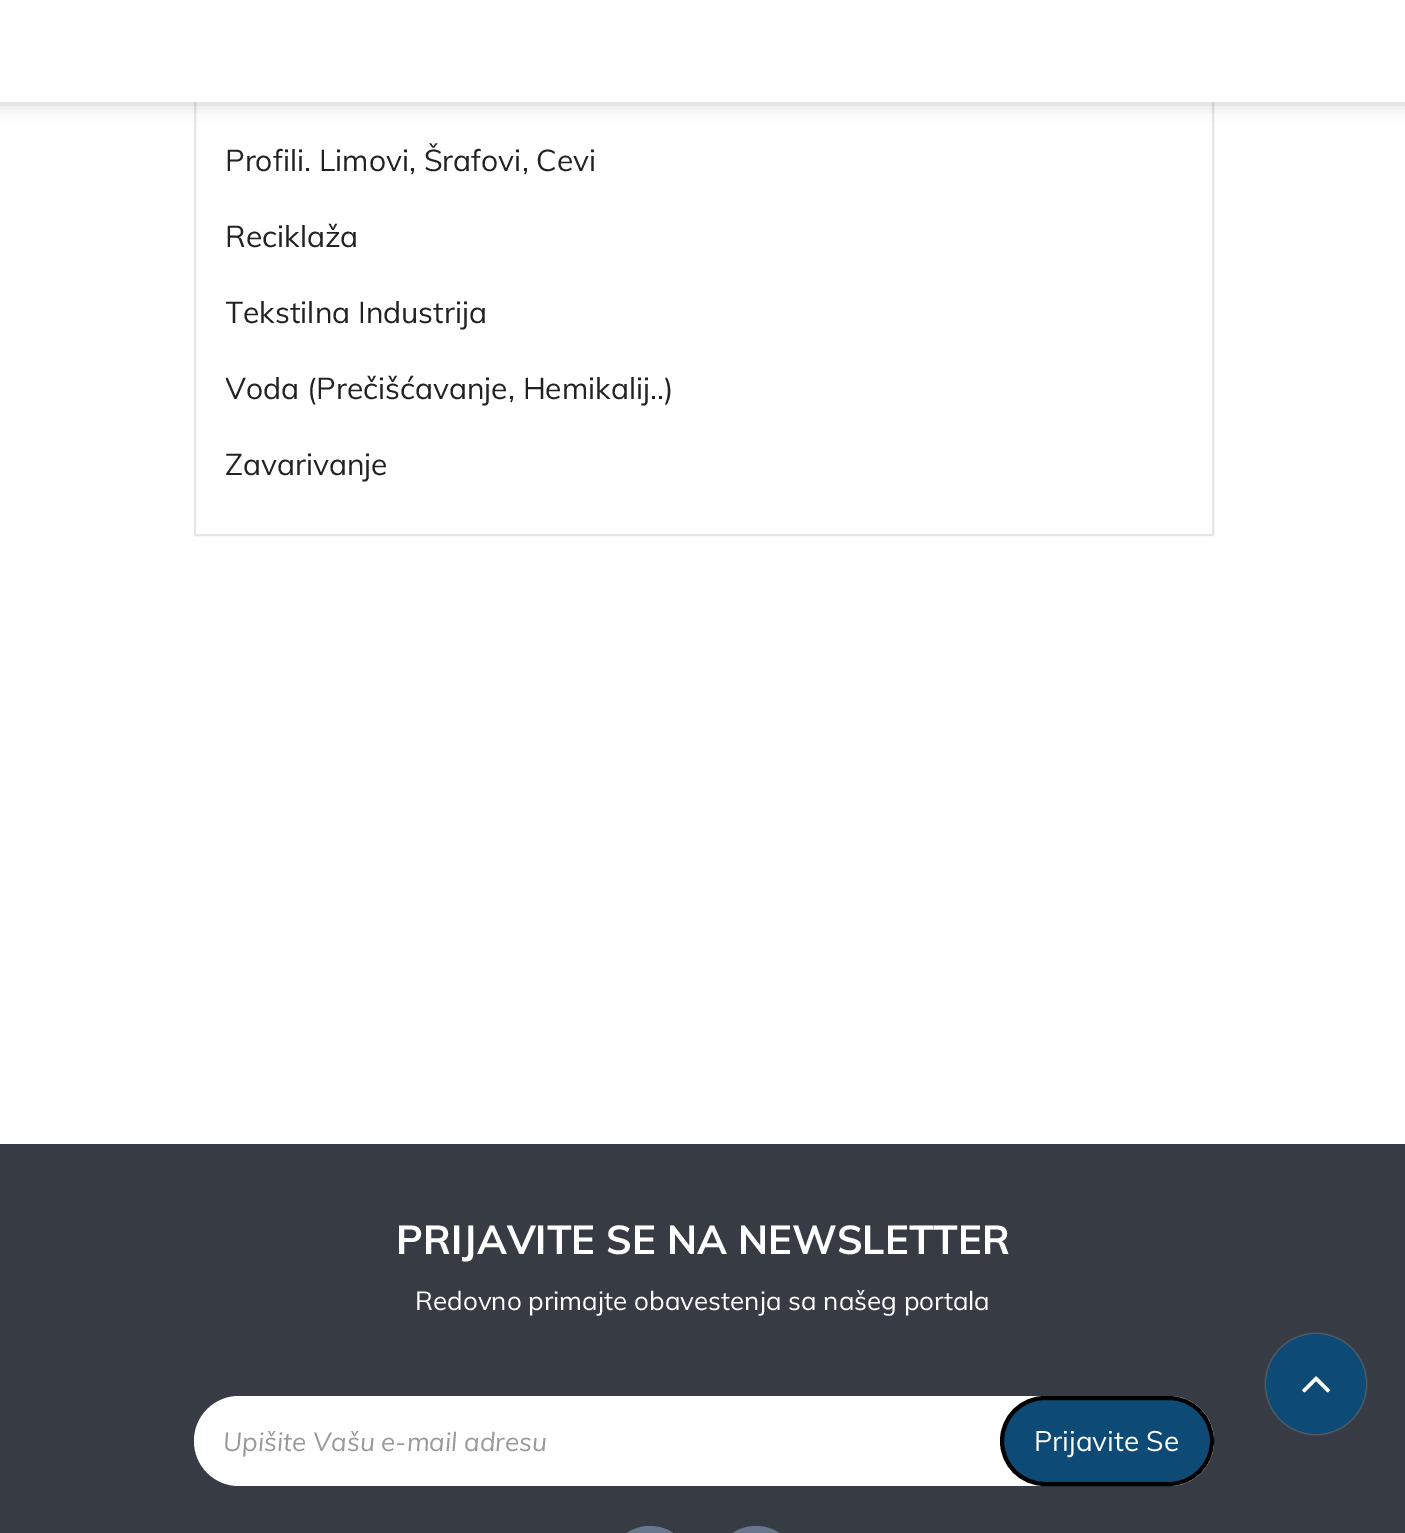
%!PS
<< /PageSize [1405 1533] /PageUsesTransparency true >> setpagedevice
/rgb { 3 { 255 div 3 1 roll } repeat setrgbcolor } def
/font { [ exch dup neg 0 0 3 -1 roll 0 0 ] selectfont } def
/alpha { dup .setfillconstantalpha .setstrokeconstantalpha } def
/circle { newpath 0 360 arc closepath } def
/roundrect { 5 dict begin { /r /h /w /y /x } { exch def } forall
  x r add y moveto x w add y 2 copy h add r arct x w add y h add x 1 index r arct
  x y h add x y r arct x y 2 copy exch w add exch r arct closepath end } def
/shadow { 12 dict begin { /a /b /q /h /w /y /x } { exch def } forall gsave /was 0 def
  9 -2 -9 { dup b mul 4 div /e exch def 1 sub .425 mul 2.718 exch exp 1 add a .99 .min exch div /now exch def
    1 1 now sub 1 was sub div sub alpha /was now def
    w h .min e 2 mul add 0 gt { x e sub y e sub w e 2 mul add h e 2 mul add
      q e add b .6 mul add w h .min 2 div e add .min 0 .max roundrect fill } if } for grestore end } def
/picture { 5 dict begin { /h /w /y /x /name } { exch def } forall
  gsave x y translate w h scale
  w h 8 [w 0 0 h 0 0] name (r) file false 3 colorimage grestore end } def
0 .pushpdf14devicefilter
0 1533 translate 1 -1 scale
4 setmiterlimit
255 255 255 rgb
0 0 1405 1533 rectfill
229 229 229 rgb
2 setlinewidth
195 -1 1018 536 rectstroke
0 0 0 rgb
-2 -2 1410 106 0 8 0.2 shadow
255 255 255 rgb
0 0 1405 102 rectfill
55 60 68 rgb
0 1144 1405 389 rectfill
255 255 255 rgb
194 1396 1020 90 45 roundrect fill
13 74 117 rgb
1002 1398 210 86 43 roundrect gsave fill grestore
0 0 0 rgb
4 setlinewidth
stroke
105 119 140 rgb
608 1526 84 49 42 roundrect fill
714 1526 84 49 42 roundrect fill
255 255 255 rgb
1266 1334 100 100 50 1 0.5 shadow
13 74 117 rgb
1316 1384 50 circle fill
(img/1.rgb) 1302 1376 28 17 picture
/Muli-Regular 30 font
34 34 34 rgb
225 171 moveto (Profili. Limovi, Šrafovi, Cevi) show
225 247 moveto (Reciklaža) show
gsave
226 0 1016 484 rectclip
225 323 moveto (Tekstilna Industrija) show
225 399 moveto (Voda \(Prečišćavanje, Hemikalij..\)) show
grestore
225 475 moveto (Zavarivanje) show
/Muli-Bold 40 font
255 255 255 rgb
396 1254 moveto (PRIJAVITE SE NA NEWSLETTER) show
/Muli-Regular 26 font
415 1310 moveto (Redovno primajte obavestenja sa našeg portala) show
/Muli-Italic 26 font
153 153 153 rgb
223 1451 moveto (Upišite Vašu e-mail adresu) show
/Muli-Regular 28 font
255 255 255 rgb
1034 1451 moveto (Prijavite Se) show
.poppdf14devicefilter showpage
